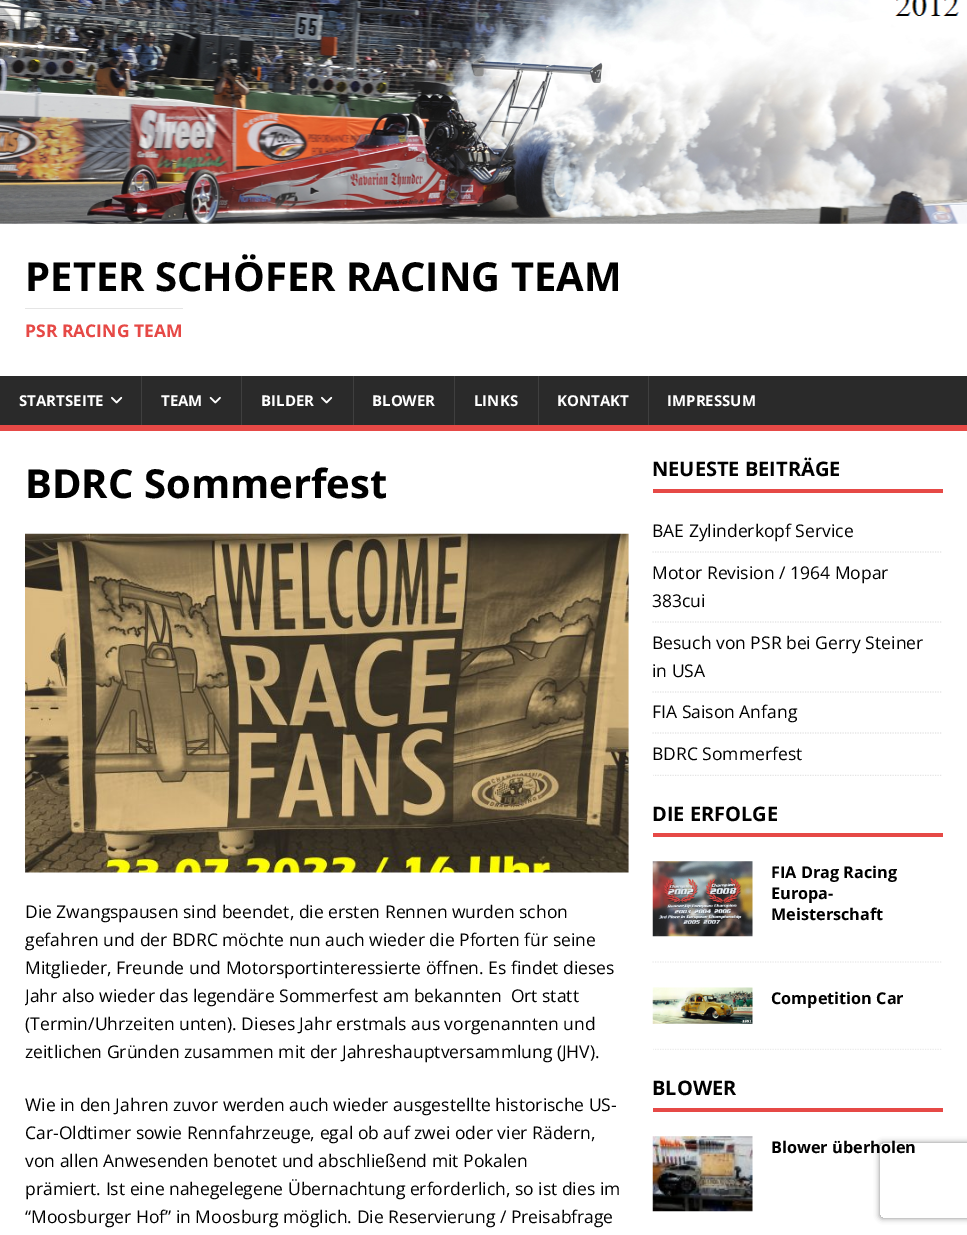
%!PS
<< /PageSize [967 1235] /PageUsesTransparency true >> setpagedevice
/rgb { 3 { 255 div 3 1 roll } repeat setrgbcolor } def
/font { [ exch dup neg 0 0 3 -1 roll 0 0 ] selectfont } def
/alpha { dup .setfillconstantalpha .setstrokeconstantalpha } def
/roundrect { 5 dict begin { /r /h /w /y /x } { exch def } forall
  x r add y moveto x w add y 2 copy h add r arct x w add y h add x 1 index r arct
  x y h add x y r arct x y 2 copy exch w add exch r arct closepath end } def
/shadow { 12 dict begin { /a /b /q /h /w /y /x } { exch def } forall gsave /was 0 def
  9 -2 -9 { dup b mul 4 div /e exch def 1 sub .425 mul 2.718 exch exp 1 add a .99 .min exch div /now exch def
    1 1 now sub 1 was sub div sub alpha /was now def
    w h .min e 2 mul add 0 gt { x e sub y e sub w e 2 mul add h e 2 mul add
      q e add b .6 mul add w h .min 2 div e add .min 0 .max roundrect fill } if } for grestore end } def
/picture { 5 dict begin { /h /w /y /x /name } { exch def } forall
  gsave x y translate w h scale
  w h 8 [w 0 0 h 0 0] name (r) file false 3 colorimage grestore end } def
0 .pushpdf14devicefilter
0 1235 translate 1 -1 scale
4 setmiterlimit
255 255 255 rgb
0 0 967 1235 rectfill
(img/1.rgb) 0 0 967 224 picture
[
  [25 308 158 1 229 229 229]
  [0 376 967 49 42 42 42]
  [0 425 967 6 230 73 70]
] { aload pop rgb rectfill } forall
(img/2.rgb) 111 396 12 8 picture
63 63 63 rgb
141 376 1 49 rectfill
(img/3.rgb) 209 396 12 8 picture
241 376 1 49 rectfill
(img/2.rgb) 321 396 12 8 picture
[
  [353 376 1 49 63 63 63]
  [454 376 1 49 63 63 63]
  [538 376 1 49 63 63 63]
  [648 376 1 49 63 63 63]
] { aload pop rgb rectfill } forall
(img/4.rgb) 25 533 604 340 picture
230 73 70 rgb
653 489 290 4 rectfill
229 229 229 rgb
1.2 setlinewidth
[1.25 1.25] 0 setdash
652.5 552 moveto 942.5 552 lineto stroke
652.5 622 moveto 942.5 622 lineto stroke
652.5 692 moveto 942.5 692 lineto stroke
652.5 733 moveto 942.5 733 lineto stroke
gsave
653 456 290 320 rectclip
652.5 775.5 moveto 942.5 775.5 lineto stroke
grestore
230 73 70 rgb
653 833 290 4 rectfill
235 235 235 rgb
652.5 962 moveto 942.5 962 lineto stroke
(img/5.rgb) 652 861 101 76 picture
gsave
653 801 290 249 rectclip
652.5 1049.5 moveto 942.5 1049.5 lineto stroke
grestore
(img/6.rgb) 652 987 101 37 picture
230 73 70 rgb
653 1108 290 4 rectfill
(img/7.rgb) 652 1136 101 76 picture
gsave
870 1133 moveto 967 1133 lineto 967 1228 lineto 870 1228 lineto closepath 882.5 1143 moveto 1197.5 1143 lineto 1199 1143 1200 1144 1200 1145.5 curveto 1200 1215.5 lineto 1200 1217 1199 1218 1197.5 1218 curveto 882.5 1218 lineto 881 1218 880 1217 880 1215.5 curveto 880 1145.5 lineto 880 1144 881 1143 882.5 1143 curveto closepath eoclip newpath
128 128 128 rgb
880 1143 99 75 2.5 3 1 shadow
grestore
/OpenSans-Bold 40 font
0 0 0 rgb
25 291 moveto (PETER SCHÖFER RACING TEAM) show
/OpenSans-Bold 17.5 font
230 73 70 rgb
25 337 moveto (PSR RACING TEAM) show
/OpenSans-Bold 15 font
255 255 255 rgb
[
  [(STARTSEITE) 19 406]
  [(TEAM) 161 406]
  [(BILDER) 261 406]
  [(BLOWER) 372 406]
  [(LINKS) 474 406]
  [(KONTAKT) 557 406]
  [(IMPRESSUM) 667 406]
] { aload pop moveto show } forall
/OpenSans-Bold 40 font
0 0 0 rgb
25 498 moveto (BDRC Sommerfest) show
/OpenSans-Regular 17.5 font
[
  [(Die Zwangspausen sind beendet, die ersten Rennen wurden schon) 25 918]
  [(gefahren und der BDRC möchte nun auch wieder die Pforten für seine) 25 946]
  [(Mitglieder, Freunde und Motorsportinteressierte öffnen. Es findet dieses) 25 974]
] { aload pop moveto show } forall
gsave
25 456 604 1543 rectclip
25 1002 moveto (Jahr also wieder das legendäre Sommerfest am bekannten  Ort statt) show
grestore
[
  [(\(Termin/Uhrzeiten unten\). Dieses Jahr erstmals aus vorgenannten und) 25 1030]
  [(zeitlichen Gründen zusammen mit der Jahreshauptversammlung \(JHV\).) 25 1058]
  [(Wie in den Jahren zuvor werden auch wieder ausgestellte historische US-) 25 1111]
  [(Car-Oldtimer sowie Rennfahrzeuge, egal ob auf zwei oder vier Rädern,) 25 1139]
  [(von allen Anwesenden benotet und abschließend mit Pokalen) 25 1167]
  [(prämiert. Ist eine nahegelegene Übernachtung erforderlich, so ist dies im) 25 1195]
  [(“Moosburger Hof” in Moosburg möglich. Die Reservierung / Preisabfrage) 25 1223]
] { aload pop moveto show } forall
/OpenSans-Bold 20 font
652 476 moveto (NEUESTE BEITRÄGE) show
/OpenSans-Regular 17.5 font
[
  [(BAE Zylinderkopf Service) 652 537]
  [(Motor Revision / 1964 Mopar) 652 579]
  [(383cui) 652 607]
  [(Besuch von PSR bei Gerry Steiner) 652 649]
  [(in USA) 652 677]
  [(FIA Saison Anfang) 652 718]
  [(BDRC Sommerfest) 652 760]
] { aload pop moveto show } forall
/OpenSans-Bold 20 font
652 821 moveto (DIE ERFOLGE) show
/OpenSans-Bold 16.25 font
[
  [(FIA Drag Racing) 771 878]
  [(Europa-) 771 899]
  [(Meisterschaft) 771 920]
  [(Competition Car) 771 1004]
] { aload pop moveto show } forall
/OpenSans-Bold 20 font
652 1095 moveto (BLOWER) show
/OpenSans-Bold 16.25 font
771 1153 moveto (Blower überholen) show
.poppdf14devicefilter showpage
